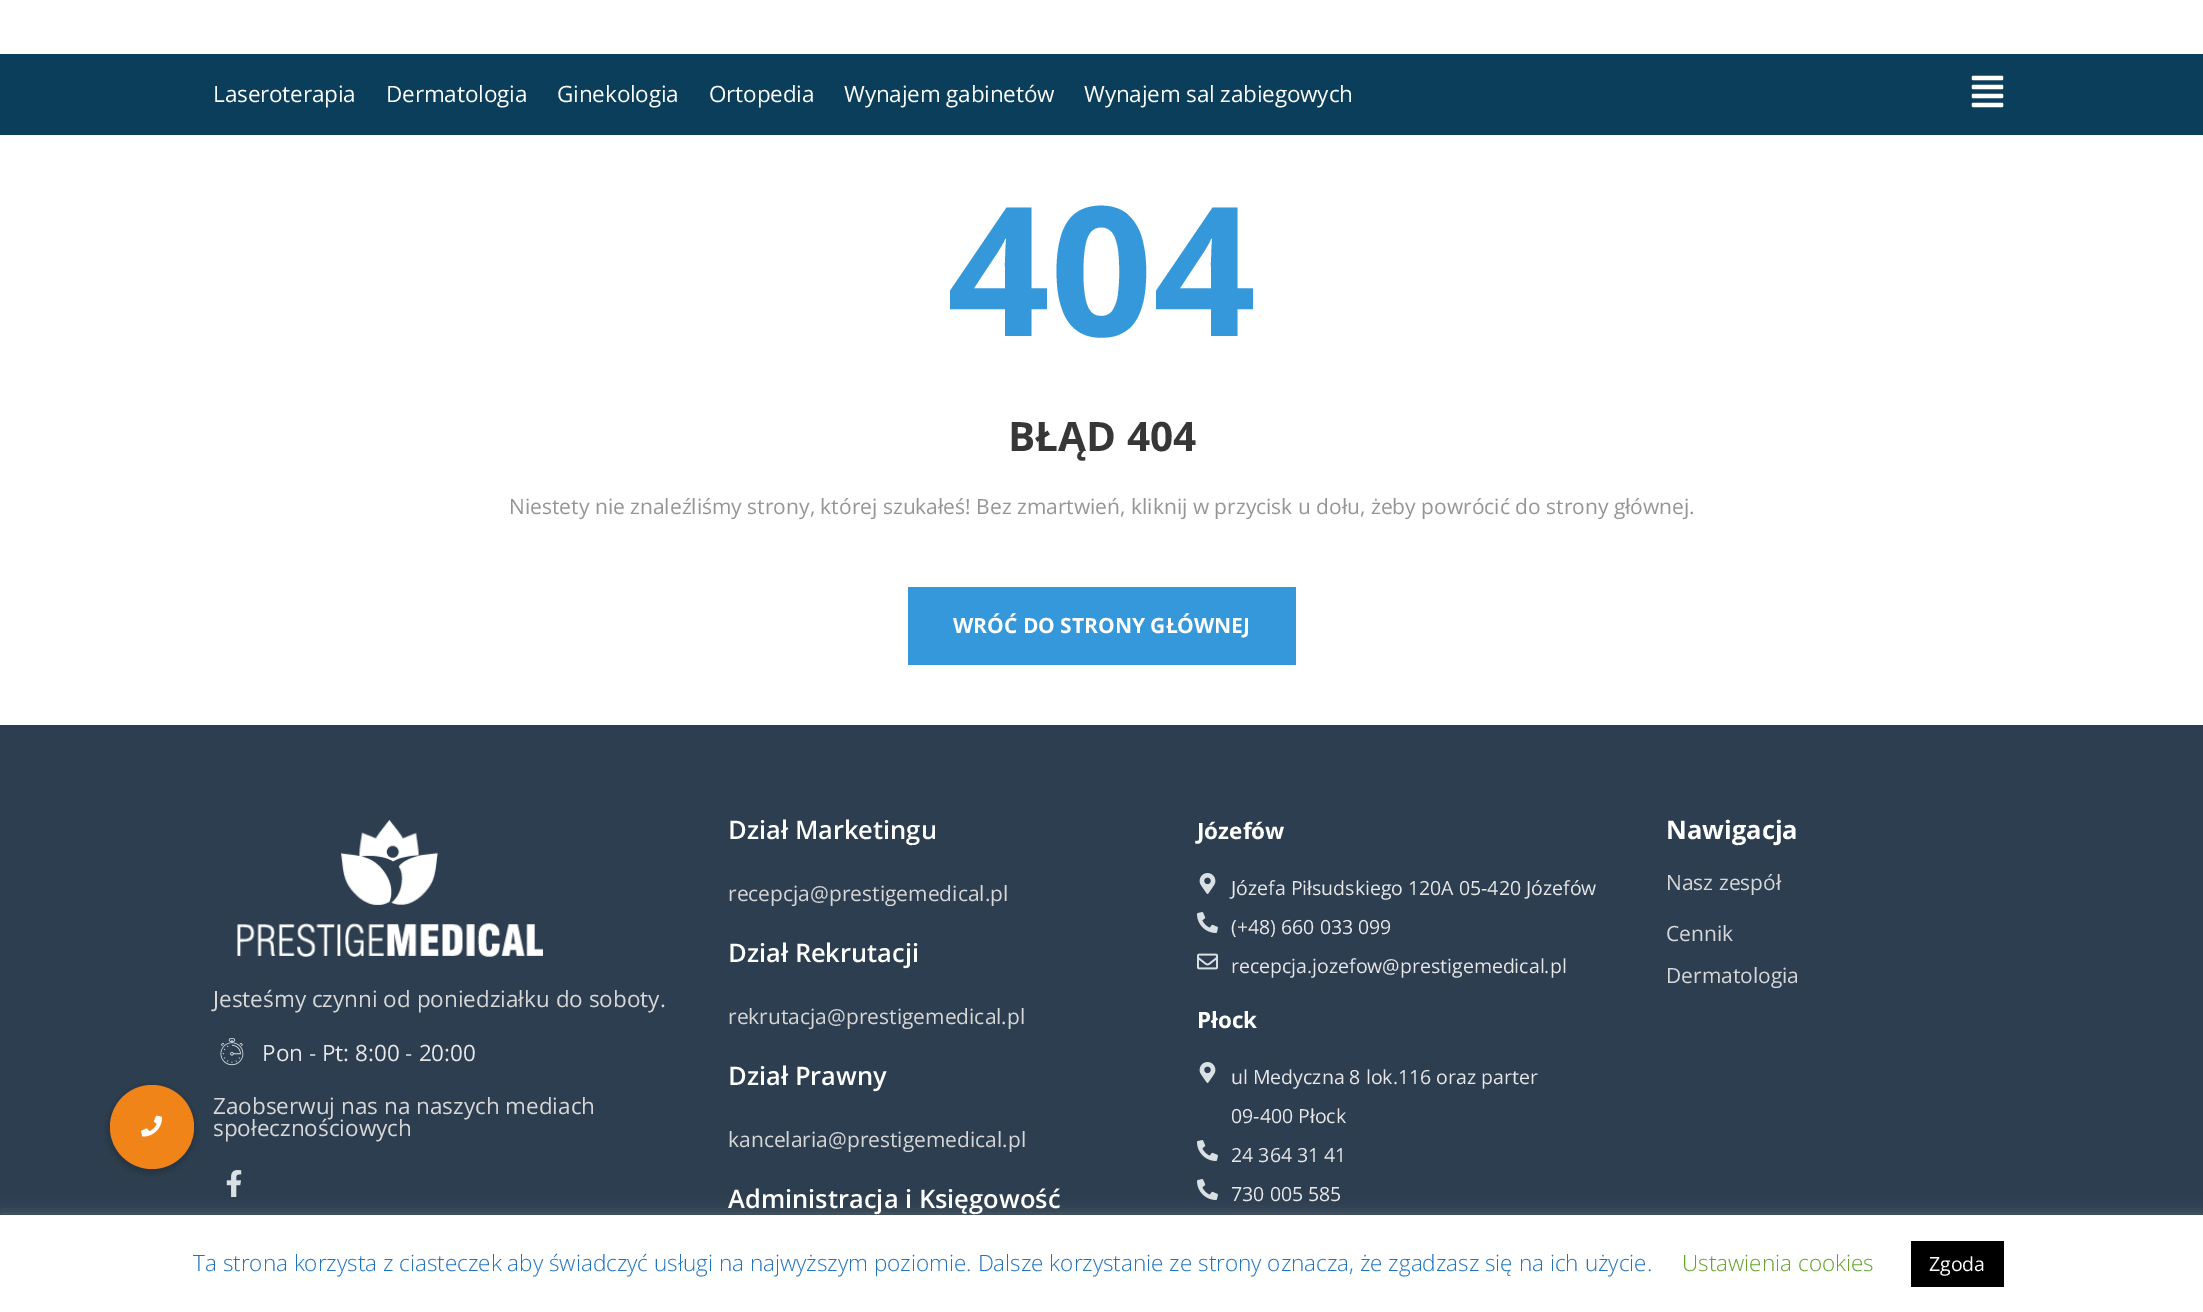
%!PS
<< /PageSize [2203 1312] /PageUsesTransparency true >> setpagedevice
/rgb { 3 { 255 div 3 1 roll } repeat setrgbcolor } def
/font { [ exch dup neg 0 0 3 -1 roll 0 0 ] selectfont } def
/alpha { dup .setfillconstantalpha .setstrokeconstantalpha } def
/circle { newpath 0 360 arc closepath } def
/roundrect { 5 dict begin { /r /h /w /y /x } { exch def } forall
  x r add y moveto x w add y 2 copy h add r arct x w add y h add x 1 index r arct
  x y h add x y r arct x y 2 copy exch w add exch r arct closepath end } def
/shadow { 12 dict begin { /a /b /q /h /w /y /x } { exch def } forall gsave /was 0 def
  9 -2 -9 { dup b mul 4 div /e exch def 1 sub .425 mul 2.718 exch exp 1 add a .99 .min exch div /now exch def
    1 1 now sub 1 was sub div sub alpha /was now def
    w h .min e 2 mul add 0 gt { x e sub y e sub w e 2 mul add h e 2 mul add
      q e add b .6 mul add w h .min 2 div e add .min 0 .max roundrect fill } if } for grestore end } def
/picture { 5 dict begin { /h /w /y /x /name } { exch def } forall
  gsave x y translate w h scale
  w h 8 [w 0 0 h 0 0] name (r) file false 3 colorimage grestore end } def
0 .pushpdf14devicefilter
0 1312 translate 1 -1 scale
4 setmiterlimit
255 255 255 rgb
0 0 2203 1312 rectfill
11 62 91 rgb
0 54 2203 81 rectfill
(img/1.rgb) 1971 75 33 33 picture
52 152 219 rgb
908 587 388 78 rectfill
45 62 80 rgb
0 725 2203 490 rectfill
0 0 0 rgb
108 1086 87 87 43.5 4.5 0.2 shadow
240 132 25 rgb
152 1127 42 circle fill
(img/2.rgb) 141 1115 21 22 picture
(img/3.rgb) 237 820 306 137 picture
(img/4.rgb) 220 1038 24 28 picture
(img/5.rgb) 226 1170 16 27 picture
(img/6.rgb) 1199 873 17 21 picture
(img/7.rgb) 1197 912 21 21 picture
(img/8.rgb) 1197 953 21 17 picture
(img/6.rgb) 1199 1062 17 21 picture
(img/7.rgb) 1197 1140 21 21 picture
(img/7.rgb) 1197 1179 21 21 picture
172 171 171 rgb
0 1214 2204 97 0 7.5 0.3 shadow
255 255 255 rgb
0 1215 2203 97 rectfill
0 0 0 rgb
1911 1241 93 46 rectfill
/OpenSans-Regular 22.5 font
255 255 255 rgb
213 102 moveto -0.15 0 (Laseroterapia) ashow
386 102 moveto -0.15 0 (Dermatologia) ashow
557 102 moveto -0.15 0 (Ginekologia) ashow
709 102 moveto -0.15 0 (Ortopedia) ashow
844 102 moveto -0.15 0 (Wynajem gabinetów) ashow
1084 102 moveto -0.15 0 (Wynajem sal zabiegowych) ashow
/OpenSans-Bold 180 font
52 152 219 rgb
947 336 moveto (404) show
/OpenSans-Bold 40.5 font
55 55 55 rgb
1008 451 moveto (BŁĄD 404) show
/OpenSans-Regular 21 font
149 149 149 rgb
509 514 moveto (Niestety nie znaleźliśmy strony, której szukałeś! Bez zmartwień, kliknij w przycisk u dołu, żeby powrócić do strony głównej.) show
/OpenSans-Bold 21 font
255 255 255 rgb
953 633 moveto (WRÓĆ DO STRONY GŁÓWNEJ) show
/OpenSans-Regular 22.5 font
215 215 215 rgb
213 1007 moveto (Jesteśmy czynni od poniedziałku do soboty.) show
231 231 231 rgb
262 1061 moveto (Pon - Pt: 8:00 - 20:00) show
215 215 215 rgb
213 1114 moveto (Zaobserwuj nas na naszych mediach) show
213 1136 moveto (społecznościowych) show
/OpenSans-SemiBold 25.5 font
255 255 255 rgb
728 839 moveto (Dział Marketingu) show
/OpenSans-Regular 21 font
215 215 215 rgb
728 901 moveto (recepcja@prestigemedical.pl) show
/OpenSans-SemiBold 25.5 font
255 255 255 rgb
728 962 moveto (Dział Rekrutacji) show
/OpenSans-Regular 21 font
215 215 215 rgb
728 1024 moveto (rekrutacja@prestigemedical.pl) show
/OpenSans-SemiBold 25.5 font
255 255 255 rgb
728 1085 moveto (Dział Prawny) show
/OpenSans-Regular 21 font
215 215 215 rgb
728 1147 moveto (kancelaria@prestigemedical.pl) show
/OpenSans-SemiBold 25.5 font
255 255 255 rgb
728 1208 moveto (Administracja i Księgowość) show
/OpenSans-Bold 22.5 font
1197 839 moveto (Józefów) show
/OpenSans-Regular 19.5 font
231 231 231 rgb
[
  [(Józefa Piłsudskiego 120A 05-420 Józefów) 1231 895]
  [(\(+48\) 660 033 099) 1231 934]
  [(recepcja.jozefow@prestigemedical.pl) 1231 973]
] { aload pop moveto show } forall
/OpenSans-Bold 22.5 font
255 255 255 rgb
1197 1028 moveto (Płock) show
/OpenSans-Regular 19.5 font
231 231 231 rgb
[
  [(ul Medyczna 8 lok.116 oraz parter) 1231 1084]
  [(09-400 Płock) 1231 1123]
  [(24 364 31 41) 1231 1162]
  [(730 005 585) 1231 1201]
] { aload pop moveto show } forall
/OpenSans-Bold 25.5 font
255 255 255 rgb
1666 839 moveto (Nawigacja) show
/OpenSans-Regular 21 font
215 215 215 rgb
[
  [(Nasz zespół) 1666 890]
  [(Cennik) 1666 941]
  [(Dermatologia) 1666 983]
] { aload pop moveto show } forall
/OpenSans-Light 22.5 font
30 115 190 rgb
193 1271 moveto (Ta strona korzysta z ciasteczek aby świadczyć usługi na najwyższym poziomie. Dalsze korzystanie ze strony oznacza, że zgadzasz się na ich użycie.) show
98 163 41 rgb
1682 1271 moveto (Ustawienia cookies) show
/OpenSans-Regular 19.5 font
255 255 255 rgb
1929 1271 moveto (Zgoda) show
.poppdf14devicefilter showpage
